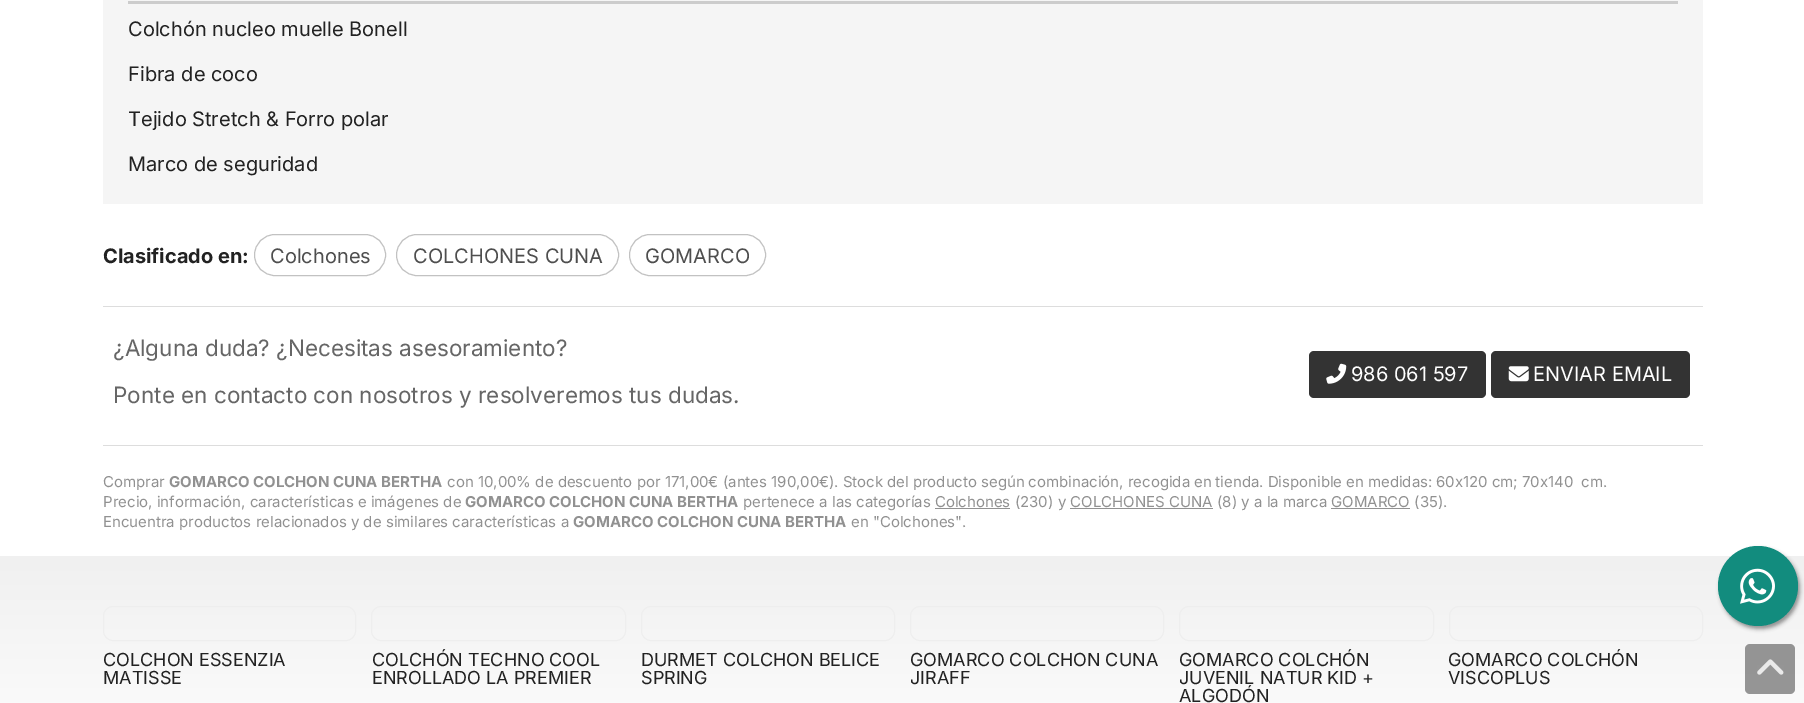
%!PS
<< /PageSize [1804 703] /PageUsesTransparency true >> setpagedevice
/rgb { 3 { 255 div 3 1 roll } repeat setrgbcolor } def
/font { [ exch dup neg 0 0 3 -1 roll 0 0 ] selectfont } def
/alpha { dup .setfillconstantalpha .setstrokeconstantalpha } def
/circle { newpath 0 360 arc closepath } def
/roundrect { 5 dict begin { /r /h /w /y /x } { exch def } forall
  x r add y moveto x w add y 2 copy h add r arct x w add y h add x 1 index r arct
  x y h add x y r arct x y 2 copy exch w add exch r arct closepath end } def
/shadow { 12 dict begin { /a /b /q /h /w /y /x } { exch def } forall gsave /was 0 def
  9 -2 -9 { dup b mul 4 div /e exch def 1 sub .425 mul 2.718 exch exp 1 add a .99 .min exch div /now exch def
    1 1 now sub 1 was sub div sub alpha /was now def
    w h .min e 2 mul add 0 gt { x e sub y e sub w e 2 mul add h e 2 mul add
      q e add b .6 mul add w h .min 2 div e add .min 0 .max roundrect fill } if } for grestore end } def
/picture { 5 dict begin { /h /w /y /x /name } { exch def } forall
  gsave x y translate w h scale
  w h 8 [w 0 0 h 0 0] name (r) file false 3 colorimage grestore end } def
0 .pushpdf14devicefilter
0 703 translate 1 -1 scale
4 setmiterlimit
255 255 255 rgb
0 0 1804 703 rectfill
245 245 245 rgb
103 0 1600 204 rectfill
204 204 204 rgb
128 1 1550 3 rectfill
194 194 194 rgb
254.5 234.5 131 41 20.5 roundrect stroke
396.5 234.5 222 41 20.5 roundrect stroke
629.5 234.5 136 41 20.5 roundrect stroke
221 221 221 rgb
103 306 1600 1 rectfill
103 445 1600 1 rectfill
51 51 51 rgb
1309 351 177 47 5 roundrect fill
(img/1.rgb) 1326 363 21 21 picture
1491 351 199 47 5 roundrect fill
(img/2.rgb) 1508 366 21 16 picture
[
  [935 508 75 1 145 145 145]
  [1070 508 143 1 145 145 145]
  [1331 508 79 1 145 145 145]
] { aload pop rgb rectfill } forall
gsave 0 556 moveto 1804 556 lineto 1804 703 lineto 0 703 lineto closepath clip newpath
<< /ShadingType 2 /ColorSpace /DeviceRGB /Coords [903 556 903 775] /Extend [true true] /Function << /FunctionType 2 /Domain [0 1] /C0 [0.941 0.941 0.941] /C1 [1 1 1] /N 1 >> >> shfill grestore
238 238 238 rgb
103.5 606.5 252 34 9.5 roundrect stroke
371.5 606.5 254 34 9.5 roundrect stroke
641.5 606.5 253 34 9.5 roundrect stroke
910.5 606.5 253 34 9.5 roundrect stroke
1179.5 606.5 254 34 9.5 roundrect stroke
1449.5 606.5 253 34 9.5 roundrect stroke
0 0 0 rgb
1720 549 80 80 40 2 0.4 shadow
18 140 126 rgb
1758 586 40 circle fill
(img/3.rgb) 1740 568 35 36 picture
0.4 alpha
0 0 0 rgb
1745 644 50 50 5 roundrect fill
1 alpha
(img/4.rgb) 1757 659 27 16 picture
/Inter-Regular 20 font
34 34 34 rgb
[
  [(Colchón nucleo muelle Bonell) 128 36]
  [(Fibra de coco) 128 81]
  [(Tejido Stretch & Forro polar) 128 126]
  [(Marco de seguridad) 128 171]
] { aload pop moveto show } forall
/Inter-Bold 20 font
103 263 moveto (Clasificado en:) show
/Inter-Regular 20 font
78 78 78 rgb
[
  [(Colchones) 270 263]
  [(COLCHONES CUNA) 413 263]
  [(GOMARCO) 645 263]
] { aload pop moveto show } forall
/Inter-Regular 22.5 font
102 102 102 rgb
113 356 moveto (¿Alguna duda? ¿Necesitas asesoramiento?) show
113 403 moveto (Ponte en contacto con nosotros y resolveremos tus dudas.) show
/Inter-Regular 20 font
255 255 255 rgb
1351 381 moveto (986 061 597) show
1533 381 moveto (ENVIAR EMAIL) show
/Inter-Regular 15 font
145 145 145 rgb
103 487 moveto (Comprar) show
/Inter-Bold 15 font
169 487 moveto (GOMARCO COLCHON CUNA BERTHA) show
/Inter-Regular 15 font
447 487 moveto (con 10,00% de descuento por 171,00€ \(antes 190,00€) show
829 487 moveto -0.25 0 32 (\). Stock del producto según combinación, recogida en tienda. Disponible en medidas: 60x120 cm; 70x140) widthshow
1581 487 moveto -0.25 0 32 (cm.) widthshow
103 507 moveto (Precio, información, características e imágenes de) show
/Inter-Bold 15 font
465 507 moveto (GOMARCO COLCHON CUNA BERTHA) show
/Inter-Regular 15 font
743 507 moveto (pertenece a las categorías Colchones \(230\) y COLCHONES CUNA \(8\) y a la marca GOMARCO \(35\).) show
103 527 moveto (Encuentra productos relacionados y de similares características a) show
/Inter-Bold 15 font
573 527 moveto (GOMARCO COLCHON CUNA BERTHA) show
/Inter-Regular 15 font
851 527 moveto (en "Colchones".) show
/Inter-Regular 18 font
34 34 34 rgb
[
  [(COLCHON ESSENZIA) 103 666]
  [(MATISSE) 103 684]
  [(COLCHÓN TECHNO COOL) 372 666]
  [(ENROLLADO LA PREMIER) 372 684]
  [(DURMET COLCHON BELICE) 641 666]
  [(SPRING) 641 684]
  [(GOMARCO COLCHON CUNA) 910 666]
  [(JIRAFF) 910 684]
  [(GOMARCO COLCHÓN) 1179 666]
  [(JUVENIL NATUR KID +) 1179 684]
  [(ALGODÓN) 1179 702]
  [(GOMARCO COLCHÓN) 1448 666]
  [(VISCOPLUS) 1448 684]
] { aload pop moveto show } forall
.poppdf14devicefilter showpage
